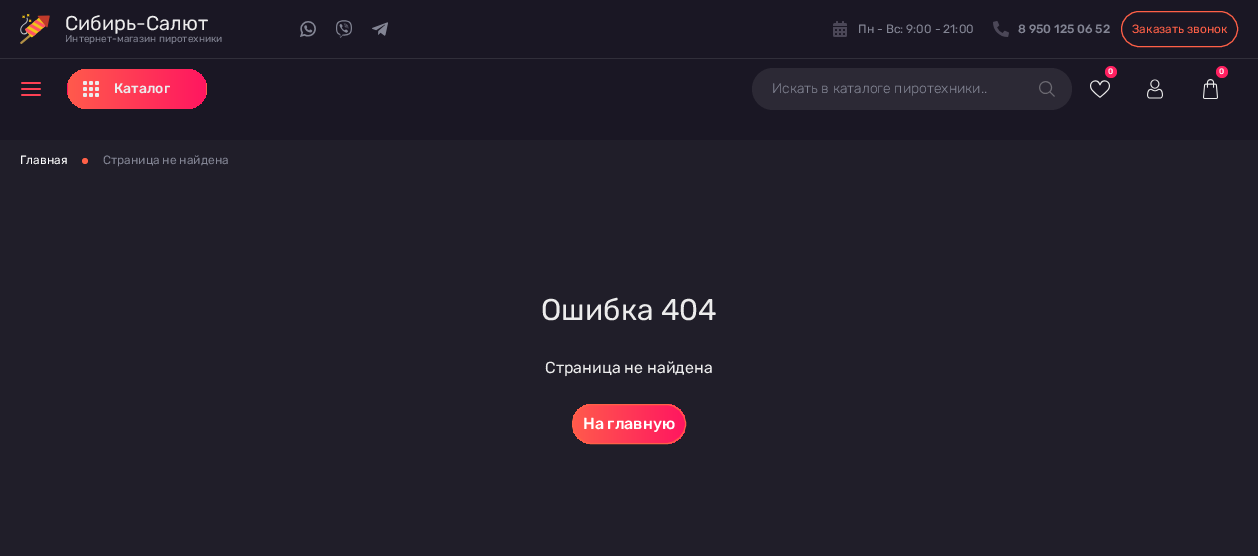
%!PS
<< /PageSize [1258 556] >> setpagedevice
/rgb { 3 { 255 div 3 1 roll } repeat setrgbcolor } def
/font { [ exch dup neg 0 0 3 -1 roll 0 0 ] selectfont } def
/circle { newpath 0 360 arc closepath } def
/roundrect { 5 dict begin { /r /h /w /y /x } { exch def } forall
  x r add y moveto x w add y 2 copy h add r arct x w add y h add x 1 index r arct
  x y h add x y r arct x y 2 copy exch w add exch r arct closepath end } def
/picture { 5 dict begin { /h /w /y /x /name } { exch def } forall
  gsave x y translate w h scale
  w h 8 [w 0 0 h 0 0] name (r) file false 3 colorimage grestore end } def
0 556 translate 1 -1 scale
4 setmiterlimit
32 30 41 rgb
0 0 1258 556 rectfill
26 23 36 rgb
0 0 1258 140 rectfill
49 47 58 rgb
0 58 1258 1 rectfill
(img/1.rgb) 20 14 30 30 picture
(img/2.rgb) 300 21 16 16 picture
(img/3.rgb) 336 20 16 18 picture
(img/4.rgb) 372 22 16 14 picture
(img/5.rgb) 833 21 14 16 picture
(img/6.rgb) 993 21 16 16 picture
255 96 71 rgb
1121.5 11.5 116 35 17.5 roundrect stroke
255 32 96 rgb
1111 72 6 circle fill
(img/7.rgb) 1090 80 20 18 picture
1222 72 6 circle fill
(img/8.rgb) 1203 79 15 20 picture
(img/9.rgb) 21 82 20 14 picture
gsave
67 69 140 40 20 roundrect clip newpath
gsave 67 83 moveto 68 83 lineto 68 95 lineto 67 95 lineto closepath clip newpath
<< /ShadingType 2 /ColorSpace /DeviceRGB /Coords [-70 89 68 89] /Extend [true true] /Function << /FunctionType 2 /Domain [0 1] /C0 [1 0.353 0.298] /C1 [1 0.086 0.376] /N 1 >> >> shfill grestore
gsave 68 69 moveto 206 69 lineto 206 109 lineto 68 109 lineto closepath clip newpath
<< /ShadingType 2 /ColorSpace /DeviceRGB /Coords [68 89 206 89] /Extend [true true] /Function << /FunctionType 2 /Domain [0 1] /C0 [1 0.353 0.298] /C1 [1 0.086 0.376] /N 1 >> >> shfill grestore
gsave 206 83 moveto 207 83 lineto 207 95 lineto 206 95 lineto closepath clip newpath
<< /ShadingType 2 /ColorSpace /DeviceRGB /Coords [206 89 344 89] /Extend [true true] /Function << /FunctionType 2 /Domain [0 1] /C0 [1 0.353 0.298] /C1 [1 0.086 0.376] /N 1 >> >> shfill grestore
grestore
(img/10.rgb) 83 81 16 16 picture
44 41 53 rgb
752 68 320 42 21 roundrect fill
(img/11.rgb) 1039 81 16 16 picture
(img/12.rgb) 1147 79 16 20 picture
255 96 71 rgb
85 161 3 circle fill
gsave
572 404 114 40 20 roundrect clip newpath
gsave 573 404 moveto 685 404 lineto 685 444 lineto 573 444 lineto closepath clip newpath
<< /ShadingType 2 /ColorSpace /DeviceRGB /Coords [573 424 685 424] /Extend [true true] /Function << /FunctionType 2 /Domain [0 1] /C0 [1 0.353 0.298] /C1 [1 0.086 0.376] /N 1 >> >> shfill grestore
grestore
572.5 404.5 113 39 19.5 roundrect stroke
/Rubik-Regular 20 font
236 236 236 rgb
65 30 moveto (Сибирь-Салют) show
/Rubik-Regular 10 font
131 133 148 rgb
65 42 moveto (Интернет-магазин пиротехники) show
/Rubik-Regular 12 font
858 33 moveto (Пн - Вс: 9:00 - 21:00) show
/Rubik-Medium 12 font
1018 33 moveto (8 950 125 06 52) show
/Rubik-Regular 12 font
255 96 71 rgb
1132 33 moveto (Заказать звонок) show
/Rubik-Medium 8 font
255 255 255 rgb
1108 74 moveto (0) show
1219 74 moveto (0) show
/Rubik-Medium 14 font
236 236 236 rgb
114 93 moveto (Каталог) show
/Rubik-Light 14 font
131 133 148 rgb
772 93 moveto (Искать в каталоге пиротехники..) show
/Rubik-Regular 12 font
255 255 255 rgb
20 164 moveto (Главная) show
131 133 148 rgb
103 164 moveto (Страница не найдена) show
/Rubik-Regular 30 font
236 236 236 rgb
541 320 moveto (Ошибка 404) show
/Rubik-Regular 16 font
545 373 moveto (Страница не найдена) show
/Rubik-Medium 16 font
255 255 255 rgb
583 429 moveto (На главную) show
showpage
